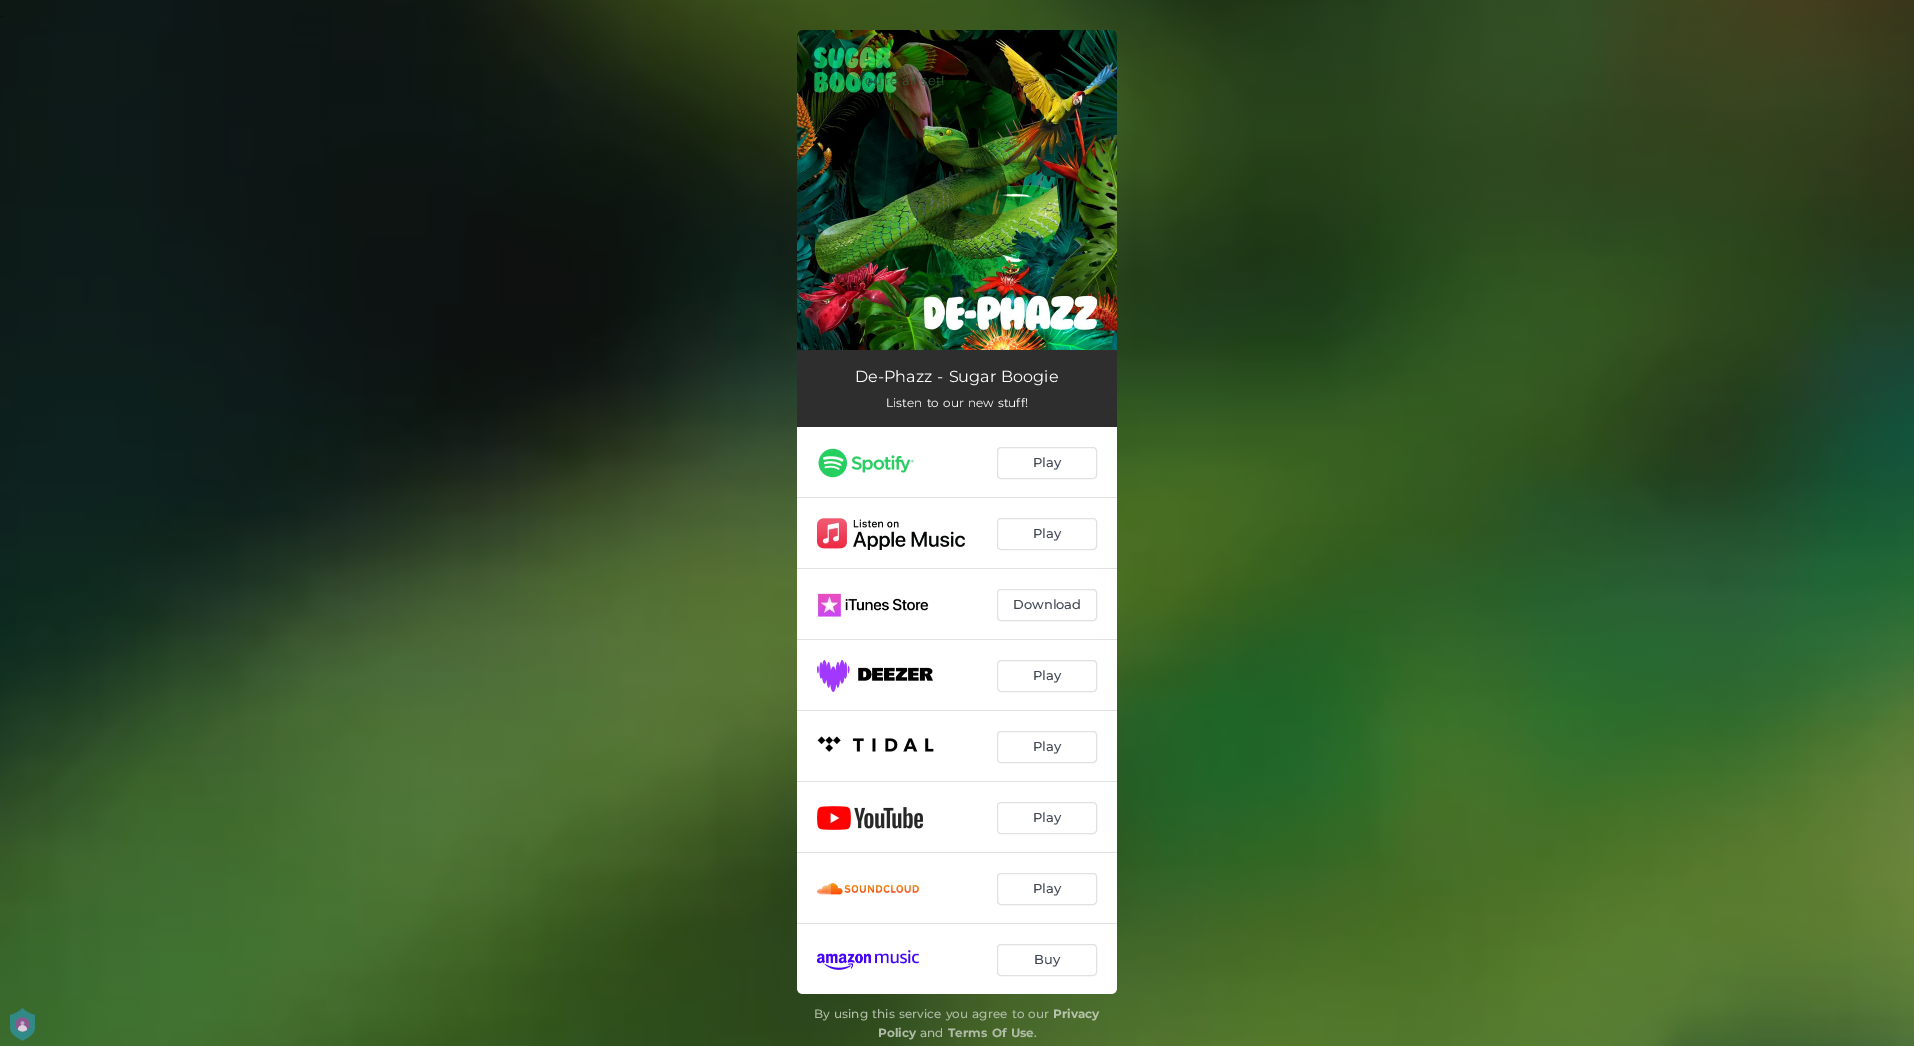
%!PS
<< /PageSize [1914 1046] /PageUsesTransparency true >> setpagedevice
/rgb { 3 { 255 div 3 1 roll } repeat setrgbcolor } def
/font { [ exch dup neg 0 0 3 -1 roll 0 0 ] selectfont } def
/alpha { dup .setfillconstantalpha .setstrokeconstantalpha } def
/circle { newpath 0 360 arc closepath } def
/roundrect { 5 dict begin { /r /h /w /y /x } { exch def } forall
  x r add y moveto x w add y 2 copy h add r arct x w add y h add x 1 index r arct
  x y h add x y r arct x y 2 copy exch w add exch r arct closepath end } def
/picture { 5 dict begin { /h /w /y /x /name } { exch def } forall
  gsave x y translate w h scale
  w h 8 [w 0 0 h 0 0] name (r) file false 3 colorimage grestore end } def
0 .pushpdf14devicefilter
0 1046 translate 1 -1 scale
4 setmiterlimit
255 255 255 rgb
0 0 1914 1046 rectfill
(img/2.rgb) 0 0 1914 1046 picture
(img/1.rgb) 10 1008 25 33 picture
(img/3.rgb) 797 30 320 320 picture
0.45 alpha
0 0 0 rgb
957 190 50 circle fill
1 alpha
46 46 46 rgb
797 350 320 77 rectfill
255 255 255 rgb
797 427 moveto 1117 427 lineto 1117 988 lineto 1117 991.5 1114.5 994 1111 994 curveto 803 994 lineto 799.5 994 797 991.5 797 988 curveto closepath fill
225 225 228 rgb
797 497 320 1 rectfill
(img/4.rgb) 818 448 96 30 picture
997.5 447.5 99 31 3.5 roundrect stroke
797 568 320 1 rectfill
(img/5.rgb) 817 518 148 32 picture
997.5 518.5 99 31 3.5 roundrect stroke
797 639 320 1 rectfill
(img/6.rgb) 818 593 111 24 picture
997.5 589.5 99 31 3.5 roundrect stroke
797 710 320 1 rectfill
(img/7.rgb) 817 660 116 32 picture
997.5 660.5 99 31 3.5 roundrect stroke
797 781 320 1 rectfill
(img/8.rgb) 817 736 117 16 picture
997.5 731.5 99 31 3.5 roundrect stroke
797 852 320 1 rectfill
(img/9.rgb) 817 806 106 24 picture
997.5 802.5 99 31 3.5 roundrect stroke
797 923 320 1 rectfill
(img/10.rgb) 817 883 102 12 picture
997.5 873.5 99 31 3.5 roundrect stroke
(img/11.rgb) 817 950 102 20 picture
997.5 944.5 99 31 3.5 roundrect stroke
/Montserrat-Regular 13 font
41 92 53 rgb
857 85 moveto 1 0 32 (You're all set!) widthshow
/Montserrat-Regular 16 font
255 255 255 rgb
855 382 moveto 1 0 32 (De-Phazz - Sugar Boogie) widthshow
/Montserrat-Regular 12 font
886 407 moveto 1 0 32 (Listen to our new stuff!) widthshow
/Montserrat-Medium 13 font
65 71 84 rgb
[
  [(Play) 1033 467]
  [(Play) 1033 538]
  [(Download) 1013 609]
  [(Play) 1033 680]
  [(Play) 1033 751]
  [(Play) 1033 822]
  [(Play) 1033 893]
  [(Buy) 1034 964]
] { aload pop moveto show } forall
/Montserrat-Medium 12 font
176 188 167 rgb
814 1018 moveto 1 0 32 (By using this service you agree to our) widthshow
/Montserrat-Bold 12 font
183 196 171 rgb
1053 1018 moveto (Privacy) show
176 188 167 rgb
878 1037 moveto (Policy) show
/Montserrat-Medium 12 font
920 1037 moveto (and) show
/Montserrat-Bold 12 font
948 1037 moveto 1 0 32 (Terms Of Use) widthshow
/Montserrat-Medium 12 font
183 196 171 rgb
1034 1037 moveto (.) show
.poppdf14devicefilter showpage
